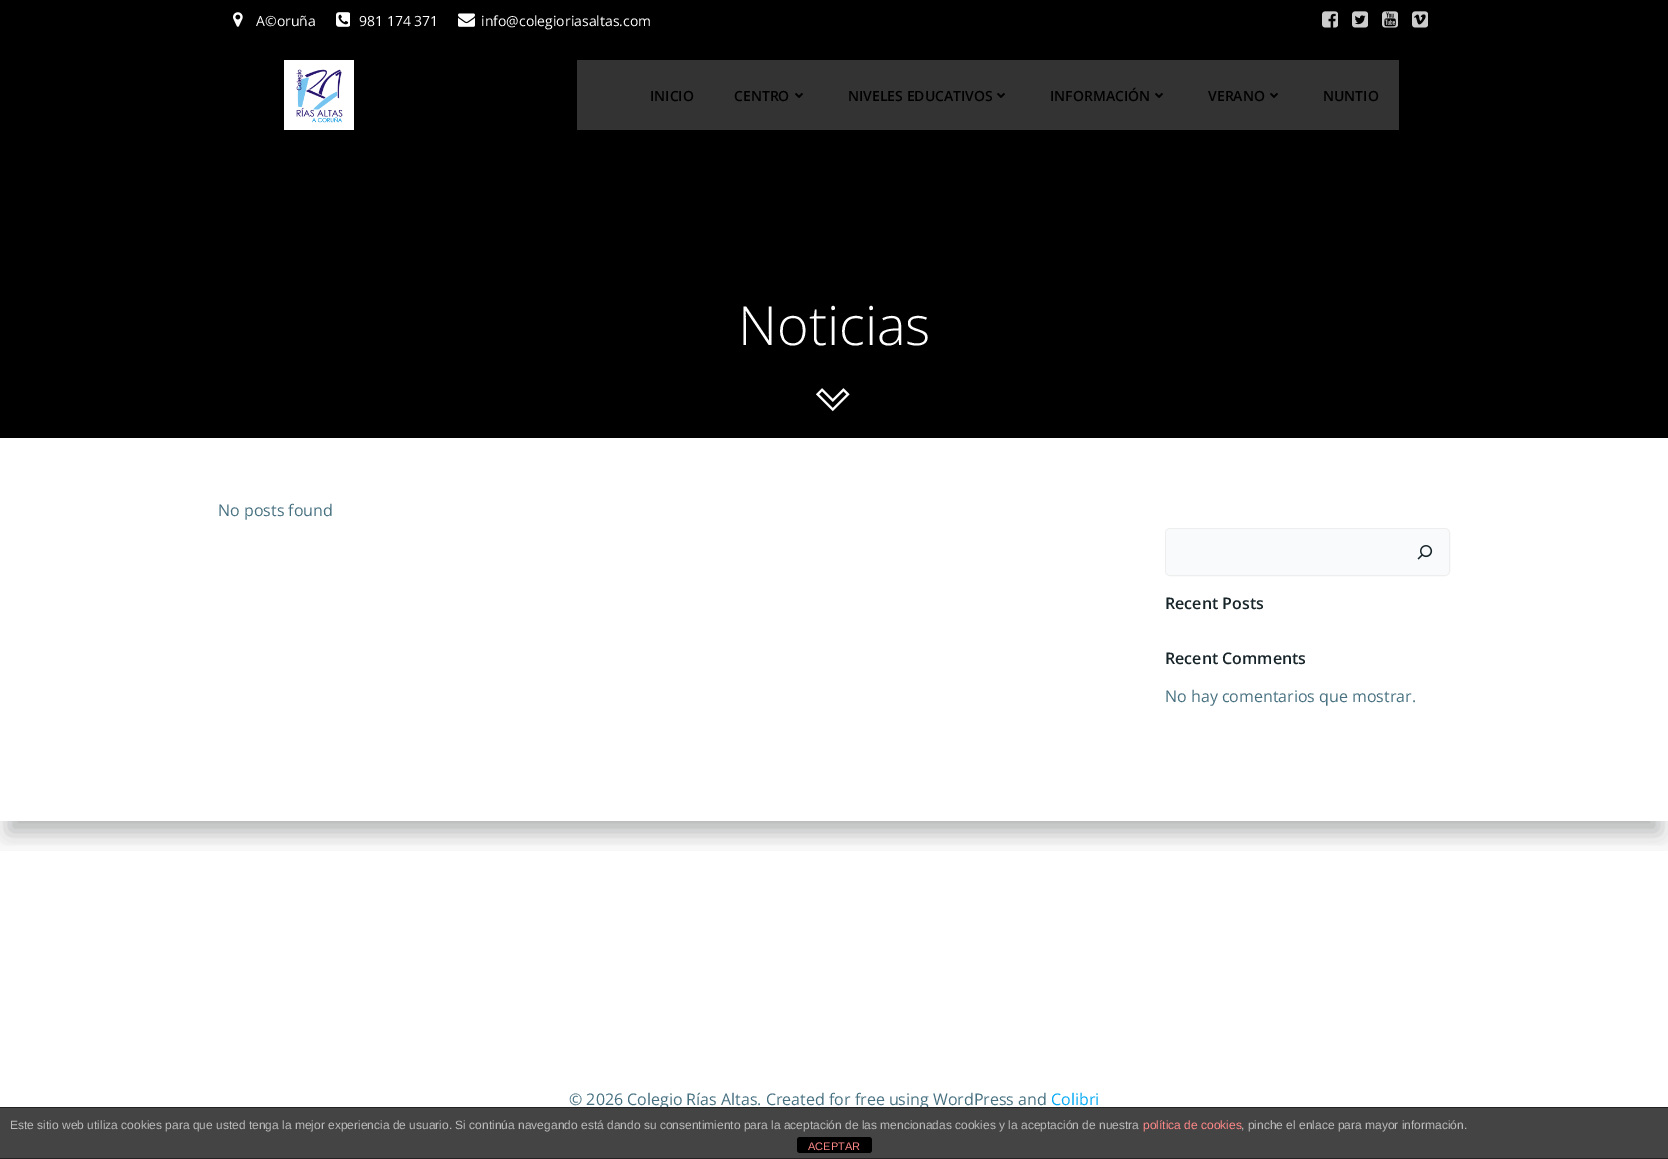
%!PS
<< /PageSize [1668 1159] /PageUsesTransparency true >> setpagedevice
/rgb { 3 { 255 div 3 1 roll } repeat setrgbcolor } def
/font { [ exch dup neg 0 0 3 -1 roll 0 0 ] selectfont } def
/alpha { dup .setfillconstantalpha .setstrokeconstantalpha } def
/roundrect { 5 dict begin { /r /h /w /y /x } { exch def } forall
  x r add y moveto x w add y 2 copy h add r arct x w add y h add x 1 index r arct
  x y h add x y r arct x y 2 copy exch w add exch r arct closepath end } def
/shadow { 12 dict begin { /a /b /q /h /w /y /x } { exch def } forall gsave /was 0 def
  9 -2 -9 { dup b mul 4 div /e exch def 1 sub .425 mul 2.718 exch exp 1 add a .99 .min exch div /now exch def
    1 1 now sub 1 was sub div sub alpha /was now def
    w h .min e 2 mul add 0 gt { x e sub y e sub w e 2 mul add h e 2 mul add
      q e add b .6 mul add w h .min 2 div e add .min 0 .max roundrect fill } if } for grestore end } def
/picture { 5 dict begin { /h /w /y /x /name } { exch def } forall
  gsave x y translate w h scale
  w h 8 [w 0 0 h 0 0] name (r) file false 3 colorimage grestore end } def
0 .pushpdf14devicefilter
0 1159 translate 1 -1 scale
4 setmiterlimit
255 255 255 rgb
0 0 1668 1159 rectfill
0 0 0 rgb
0 0 1668 438 rectfill
(img/1.rgb) 233 12 10 15 picture
(img/2.rgb) 336 12 14 15 picture
(img/3.rgb) 458 13 17 14 picture
(img/4.rgb) 1322 11 16 17 picture
(img/5.rgb) 1352 11 16 17 picture
(img/6.rgb) 1382 11 16 17 picture
(img/7.rgb) 1412 11 16 17 picture
(img/8.rgb) 284 60 70 70 picture
51 51 51 rgb
577 60 822 70 rectfill
(img/9.rgb) 795 93 8 5 picture
(img/9.rgb) 997 93 8 5 picture
(img/9.rgb) 1155 93 8 5 picture
(img/9.rgb) 1270 93 8 5 picture
(img/10.rgb) 816 388 34 24 picture
gsave
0 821 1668 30 rectclip
0 0 0 rgb
0 458 1668 383 0 15 0.08 shadow
grestore
gsave
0 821 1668 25 rectclip
49 52 57 rgb
10 468 1648 363 0 10 0.3 shadow
grestore
238 238 238 rgb
1165.5 528.5 284 47 4.5 roundrect stroke
gsave
1166 529 283 46 4 roundrect clip newpath
249 250 251 rgb
1171 529 moveto 1401 529 lineto 1401 575 lineto 1171 575 lineto 1168 575 1166 573 1166 570 curveto 1166 534 lineto 1166 531 1168 529 1171 529 curveto closepath fill
1401 529 moveto 1444 529 lineto 1447 529 1449 531 1449 534 curveto 1449 570 lineto 1449 573 1447 575 1444 575 curveto 1401 575 lineto closepath fill
grestore
(img/11.rgb) 1417 545 16 15 picture
34 34 34 rgb
0 1158 1668 1 rectfill
/OpenSans-Regular 14 font
255 255 255 rgb
[
  [(A©oruña) 256 26]
  [(981 174 371) 359 26]
  [(info@colegioriasaltas.com) 481 26]
] { aload pop moveto show } forall
/OpenSans-SemiBold 14 font
0 0 0 rgb
[
  [(INICIO) 650 101]
  [(CENTRO) 734 101]
  [(NIVELES EDUCATIVOS) 848 101]
  [(INFORMACIÓN) 1050 101]
  [(VERANO) 1208 101]
  [(NUNTIO) 1323 101]
] { aload pop moveto show } forall
/OpenSans-Light 54 font
255 255 255 rgb
738 345 moveto (Noticias) show
/OpenSans-Regular 16 font
70 112 127 rgb
218 516 moveto (No posts found) show
/OpenSans-SemiBold 16 font
23 37 42 rgb
1165 609 moveto (Recent Posts) show
1165 664 moveto (Recent Comments) show
/OpenSans-Regular 16 font
70 112 127 rgb
1165 702 moveto (No hay comentarios que mostrar.) show
569 1105 moveto (© 2026 Colegio Rías Altas. Created for free using WordPress and) show
3 169 244 rgb
1051 1105 moveto (Colibri) show
68 68 68 rgb
0 1108 1668 50 rectfill
34 34 34 rgb
0 1107 1668 1 rectfill
/LiberationSans-Regular 12 font
187 187 187 rgb
10 1129 moveto (Este sitio web utiliza cookies para que usted tenga la mejor experiencia de usuario. Si continúa navegando está dando su consentimiento para la aceptación de las mencionadas cookies y la aceptación de nuestra) show
255 136 136 rgb
1143 1129 moveto (política de cookies) show
187 187 187 rgb
1241 1129 moveto (, pinche el enlace para mayor información.) show
0 0 0 rgb
797 1137 75 16 3 roundrect fill
/LiberationSans-Regular 11 font
255 136 136 rgb
808 1150 moveto (ACEPTAR) show
.poppdf14devicefilter showpage
